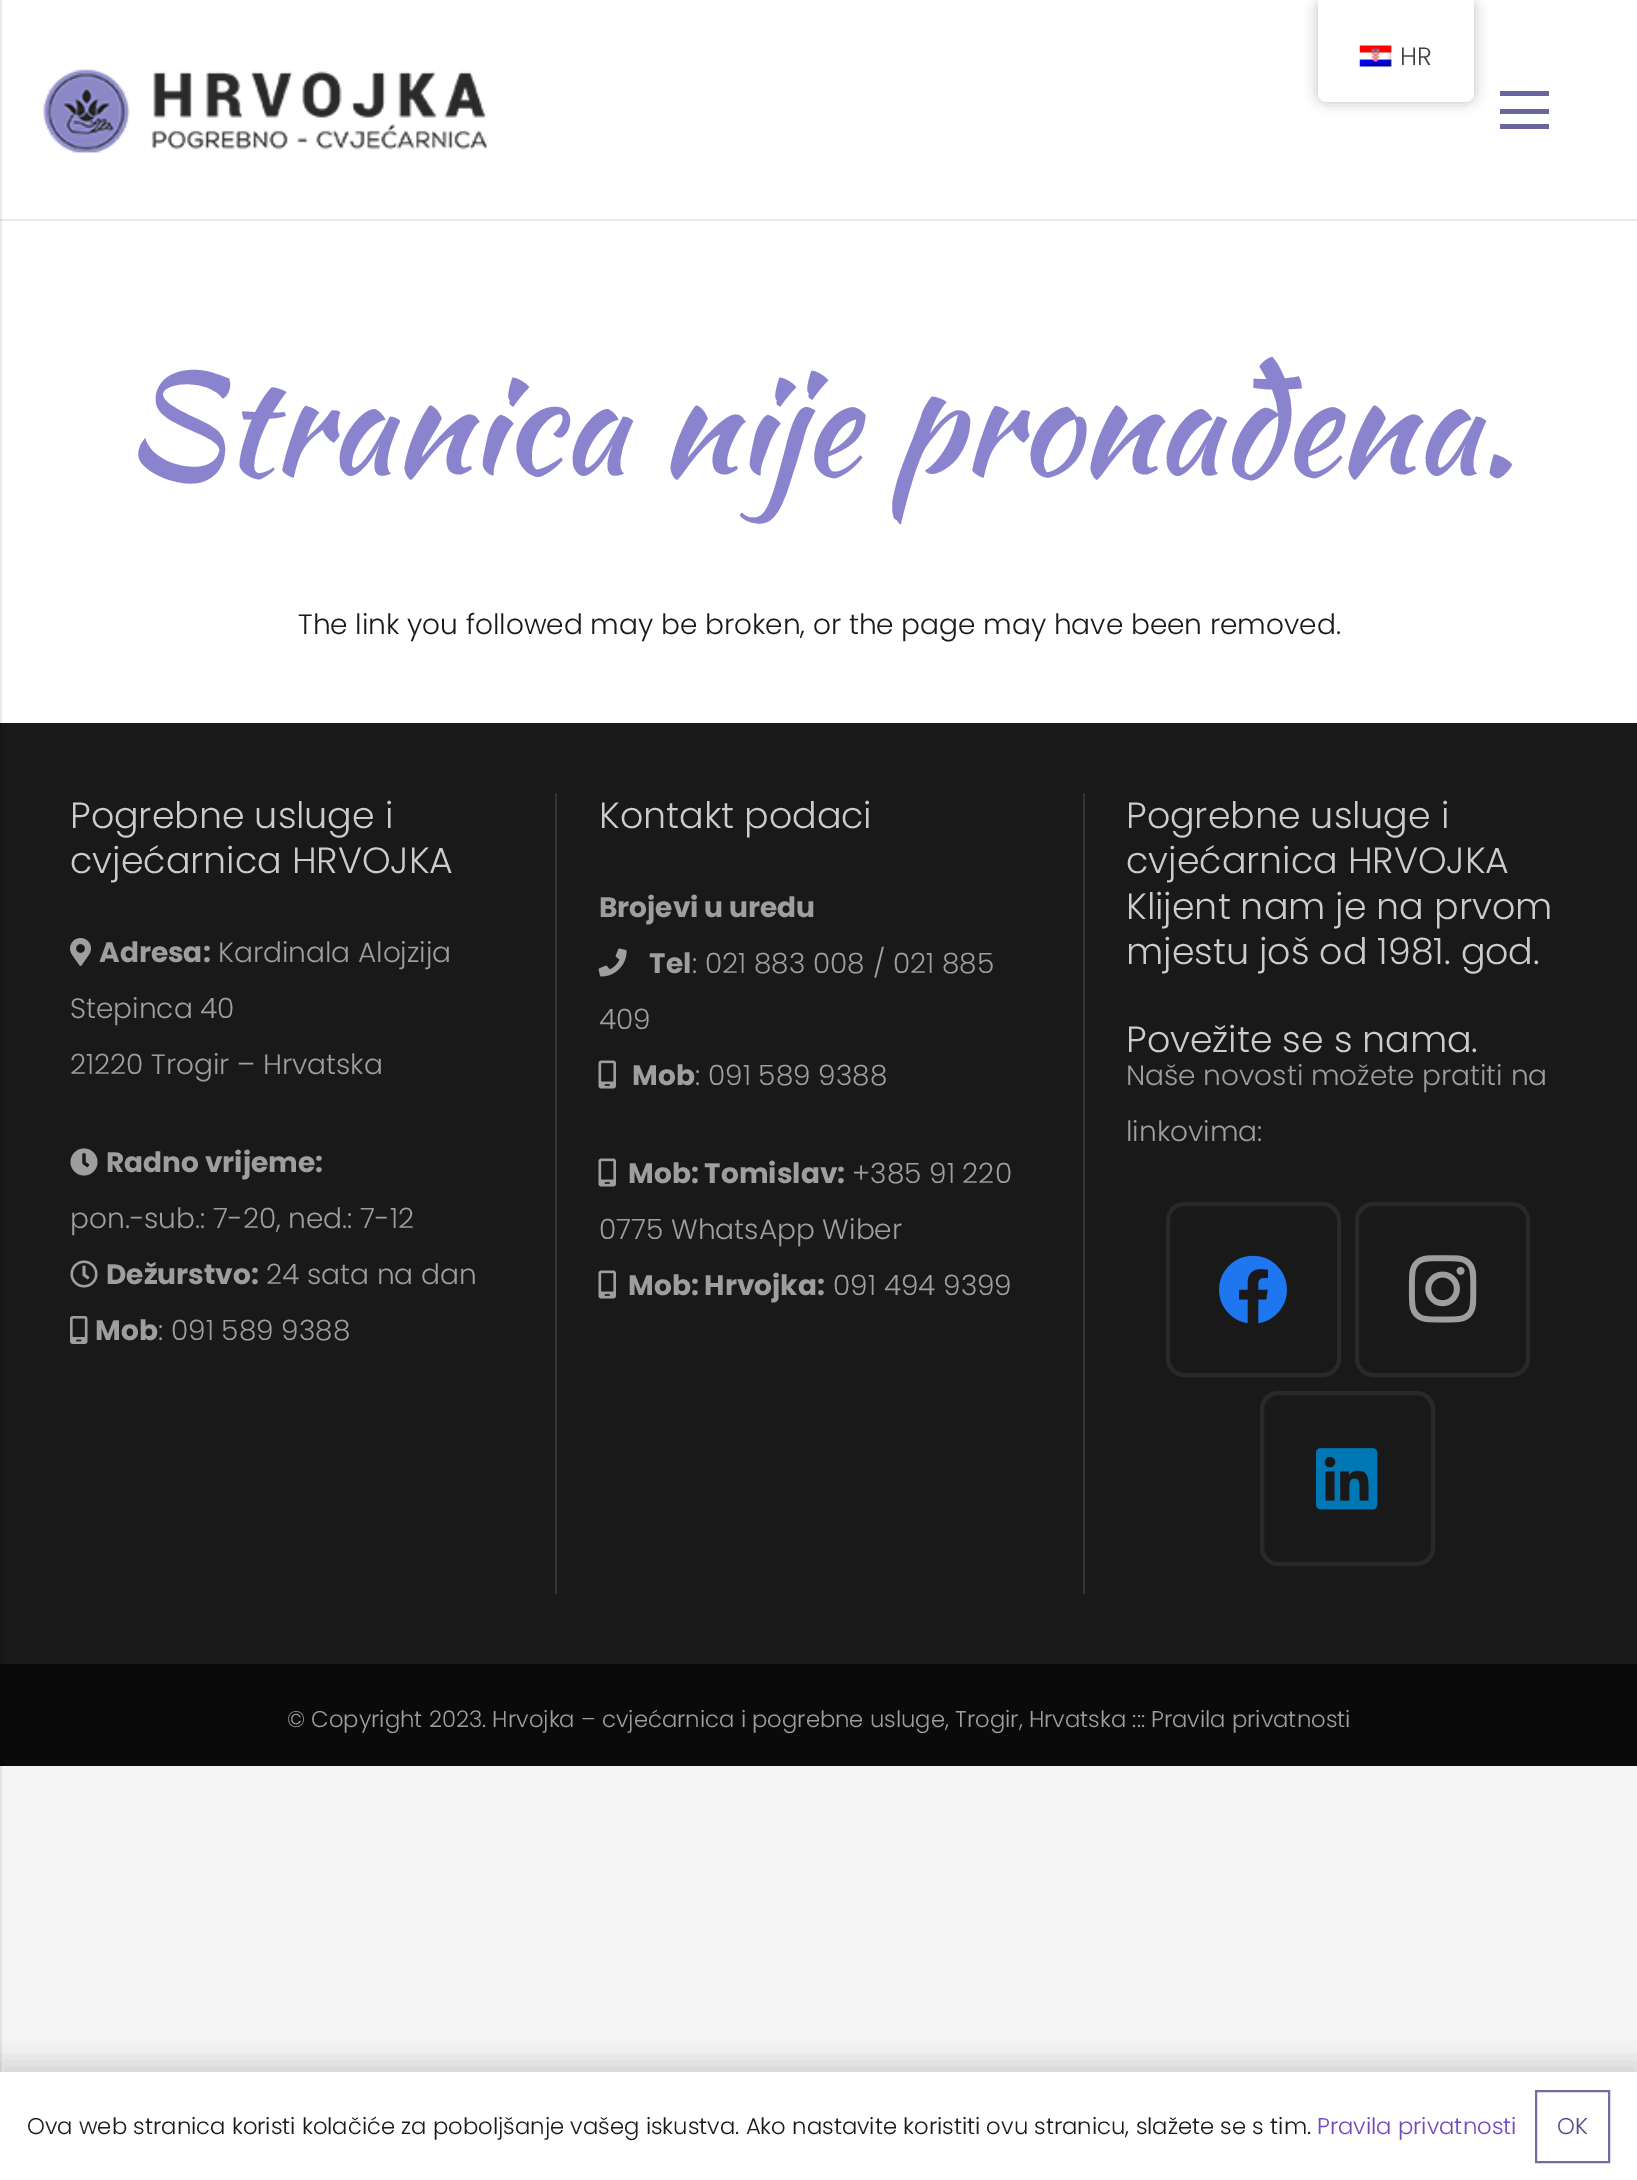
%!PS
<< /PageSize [1637 2180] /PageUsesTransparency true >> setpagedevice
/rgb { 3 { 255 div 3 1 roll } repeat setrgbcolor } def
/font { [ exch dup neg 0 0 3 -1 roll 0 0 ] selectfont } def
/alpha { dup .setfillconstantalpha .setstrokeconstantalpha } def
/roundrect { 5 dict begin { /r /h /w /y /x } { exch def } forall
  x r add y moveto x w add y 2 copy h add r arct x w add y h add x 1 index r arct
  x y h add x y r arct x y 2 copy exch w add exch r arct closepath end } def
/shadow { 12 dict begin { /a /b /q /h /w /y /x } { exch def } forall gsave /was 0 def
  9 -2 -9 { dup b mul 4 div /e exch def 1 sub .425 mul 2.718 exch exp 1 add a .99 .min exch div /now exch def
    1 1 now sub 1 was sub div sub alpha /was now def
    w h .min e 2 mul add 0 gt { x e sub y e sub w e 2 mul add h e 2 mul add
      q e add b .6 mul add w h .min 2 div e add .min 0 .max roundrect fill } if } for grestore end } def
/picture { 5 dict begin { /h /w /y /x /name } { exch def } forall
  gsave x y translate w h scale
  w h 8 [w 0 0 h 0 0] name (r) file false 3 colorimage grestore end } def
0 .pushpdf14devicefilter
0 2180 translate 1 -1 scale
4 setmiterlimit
245 245 245 rgb
0 0 1637 2180 rectfill
255 255 255 rgb
0 0 1637 723 rectfill
0 0 0 rgb
1318 0 156 102 9 7 0.25 shadow
255 255 255 rgb
1318 0 moveto 1474 0 lineto 1474 93 lineto 1474 98 1470 102 1465 102 curveto 1327 102 lineto 1322 102 1318 98 1318 93 curveto closepath fill
(img/1.rgb) 1359 45 33 22 picture
[
  [0 219 1637 2 235 235 235]
  [0 723 1637 941 25 25 25]
  [0 1664 1637 102 10 10 10]
] { aload pop rgb rectfill } forall
0.08 alpha
0 0 0 rgb
-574 2180 moveto -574 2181 lineto 2 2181 lineto 2 0 lineto 0 0 lineto 0 2180 lineto closepath fill
1 alpha
[
  [1500 109 49 5 105 101 158]
  [1500 91 49 5 105 101 158]
  [1500 124 49 5 105 101 158]
] { aload pop rgb rectfill } forall
(img/2.rgb) 43 69 444 84 picture
(img/3.rgb) 70 938 21 28 picture
(img/4.rgb) 70 1148 28 28 picture
(img/5.rgb) 70 1260 28 28 picture
(img/6.rgb) 70 1316 18 28 picture
51 51 51 rgb
555 793 2 801 rectfill
(img/7.rgb) 598 948 29 29 picture
(img/8.rgb) 598 1060 18 29 picture
(img/8.rgb) 598 1158 18 29 picture
(img/8.rgb) 598 1270 18 29 picture
1083 793 2 801 rectfill
41 41 41 rgb
4 setlinewidth
1168 1204 171 171 16 roundrect stroke
(img/9.rgb) 1219 1255 68 69 picture
1357 1204 171 171 16 roundrect stroke
(img/10.rgb) 1408 1255 69 68 picture
1262 1393 171 171 16 roundrect stroke
(img/11.rgb) 1316 1448 62 62 picture
0 0 0 rgb
0 2063 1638 109 0 13 0.15 shadow
255 255 255 rgb
0 2072 1637 108 rectfill
113 109 156 rgb
2 setlinewidth
1536 2091 73 71 rectstroke
/Poppins-Light 25 font
64 64 64 rgb
1400 65 moveto (HR) show
/KaushanScript-Regular 140 font
138 132 207 rgb
124 473 moveto (Stranica nije pronađena.) show
/Poppins-Light 28 font
26 26 26 rgb
298 634 moveto (The link you followed may be broken, or the page may have been removed.) show
/Poppins-Light 36.4 font
204 204 204 rgb
70 828 moveto (Pogrebne usluge i) show
70 873 moveto (cvjećarnica HRVOJKA) show
/Poppins-Bold 28 font
158 158 158 rgb
99 962 moveto (Adresa:) show
/Poppins-Light 28 font
[
  [(Kardinala Alojzija) 218 962]
  [(Stepinca 40) 70 1018]
  [(21220 Trogir – Hrvatska) 70 1074]
] { aload pop moveto show } forall
/Poppins-Bold 28 font
106 1172 moveto (Radno vrijeme:) show
/Poppins-Light 28 font
70 1228 moveto (pon.-sub.: 7-20, ned.: 7-12) show
/Poppins-Bold 28 font
106 1284 moveto (Dežurstvo:) show
/Poppins-Light 28 font
266 1284 moveto (24 sata na dan) show
/Poppins-Bold 28 font
95 1340 moveto (Mob) show
/Poppins-Light 28 font
158 1340 moveto (: 091 589 9388) show
/Poppins-Light 36.4 font
204 204 204 rgb
599 828 moveto (Kontakt podaci) show
/Poppins-Bold 28 font
158 158 158 rgb
599 917 moveto (Brojevi u uredu) show
649 973 moveto (Tel) show
/Poppins-Light 28 font
692 973 moveto (: 021 883 008 / 021 885) show
599 1029 moveto (409) show
/Poppins-Bold 28 font
632 1085 moveto (Mob) show
/Poppins-Light 28 font
695 1085 moveto (: 091 589 9388) show
/Poppins-Bold 28 font
628 1183 moveto (Mob: Tomislav:) show
/Poppins-Light 28 font
852 1183 moveto (+385 91 220) show
599 1239 moveto (0775 WhatsApp Wiber) show
/Poppins-Bold 28 font
628 1295 moveto (Mob: Hrvojka:) show
/Poppins-Light 28 font
833 1295 moveto (091 494 9399) show
/Poppins-Light 36.4 font
204 204 204 rgb
[
  [(Pogrebne usluge i) 1126 828]
  [(cvjećarnica HRVOJKA) 1126 873]
  [(Klijent nam je na prvom) 1126 919]
  [(mjestu još od 1981. god.) 1126 964]
  [(Povežite se s nama.) 1126 1052]
] { aload pop moveto show } forall
/Poppins-Light 28 font
158 158 158 rgb
1126 1085 moveto (Naše novosti možete pratiti na) show
1126 1141 moveto (linkovima:) show
/Poppins-Light 22.75 font
287 1727 moveto (© Copyright 2023. Hrvojka – cvjećarnica i pogrebne usluge, Trogir, Hrvatska :::) show
1151 1727 moveto (Pravila privatnosti) show
26 26 26 rgb
27 2134 moveto (Ova web stranica koristi kolačiće za poboljšanje vašeg iskustva. Ako nastavite koristiti ovu stranicu, slažete se s tim.) show
112 73 186 rgb
1317 2134 moveto (Pravila privatnosti) show
82 77 135 rgb
1557 2134 moveto (OK) show
.poppdf14devicefilter showpage
